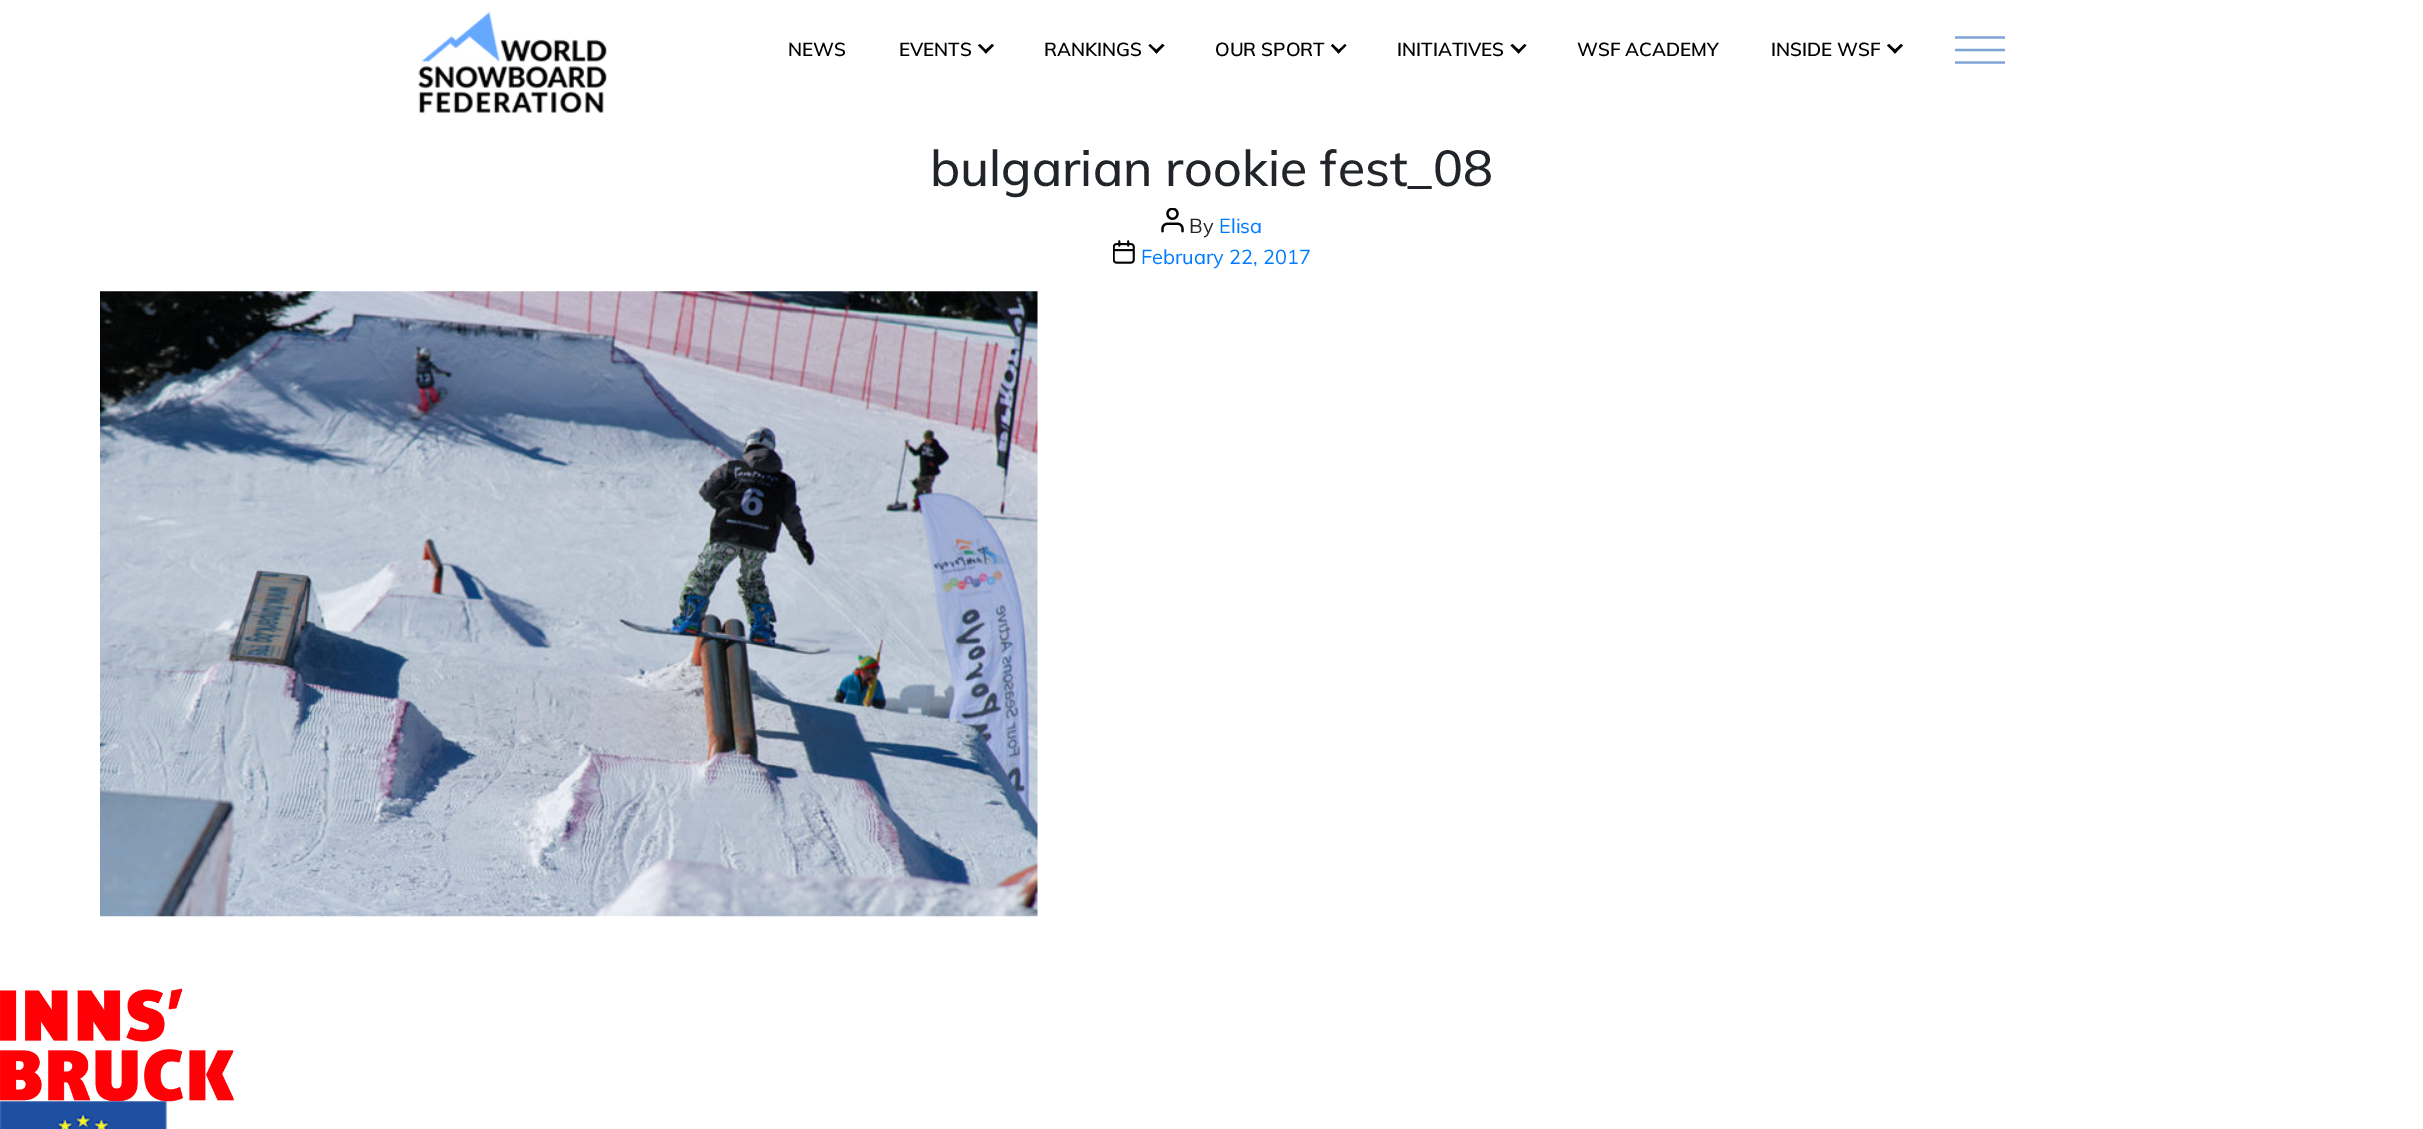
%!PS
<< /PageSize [2423 1129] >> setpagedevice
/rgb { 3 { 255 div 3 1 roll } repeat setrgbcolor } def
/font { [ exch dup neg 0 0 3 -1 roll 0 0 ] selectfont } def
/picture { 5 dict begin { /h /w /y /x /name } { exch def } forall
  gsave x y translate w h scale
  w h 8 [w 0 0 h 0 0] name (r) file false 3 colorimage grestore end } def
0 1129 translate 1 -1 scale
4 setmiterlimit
255 255 255 rgb
0 0 2423 1129 rectfill
(img/1.rgb) 418 12 189 101 picture
0 0 0 rgb
992 44 moveto 994 45.5 lineto 986 53.5 lineto 984 51.5 lineto closepath fill
980 44 moveto 987.5 51.5 lineto 986 53.5 lineto 978 45.5 lineto closepath fill
1162.5 44 moveto 1164.5 45.5 lineto 1156.5 53.5 lineto 1154.5 51.5 lineto closepath fill
1150 44 moveto 1158 51.5 lineto 1156.5 53.5 lineto 1148.5 45.5 lineto closepath fill
1345 44 moveto 1346.5 45.5 lineto 1338.5 53.5 lineto 1337 51.5 lineto closepath fill
1332.5 44 moveto 1340.5 51.5 lineto 1338.5 53.5 lineto 1331 45.5 lineto closepath fill
1524.5 44 moveto 1526.5 45.5 lineto 1518.5 53.5 lineto 1517 51.5 lineto closepath fill
1512.5 44 moveto 1520.5 51.5 lineto 1518.5 53.5 lineto 1510.5 45.5 lineto closepath fill
1901 44 moveto 1903 45.5 lineto 1895 53.5 lineto 1893 51.5 lineto closepath fill
1889 44 moveto 1897 51.5 lineto 1895 53.5 lineto 1887 45.5 lineto closepath fill
(img/2.rgb) 1955 36 50 28 picture
(img/3.rgb) 1161 208 23 25 picture
(img/4.rgb) 1113 240 22 24 picture
(img/5.rgb) 100 291 938 626 picture
(img/6.rgb) 0 988 234 114 picture
(img/7.rgb) 0 1101 168 28 picture
/Muli-SemiBold 18.75 font
[
  [(NEWS) 788 56]
  [(EVENTS) 899 56]
  [(RANKINGS) 1044 56]
  [(OUR SPORT) 1215 56]
  [(INITIATIVES) 1397 56]
  [(WSF ACADEMY) 1577 56]
  [(INSIDE WSF) 1771 56]
] { aload pop moveto show } forall
/Muli-Medium 50 font
33 37 41 rgb
930 186 moveto (bulgarian rookie fest_08) show
/Muli-Regular 20 font
1189 233 moveto (By) show
0 123 255 rgb
1219 233 moveto (Elisa) show
1141 264 moveto (February 22, 2017) show
showpage
